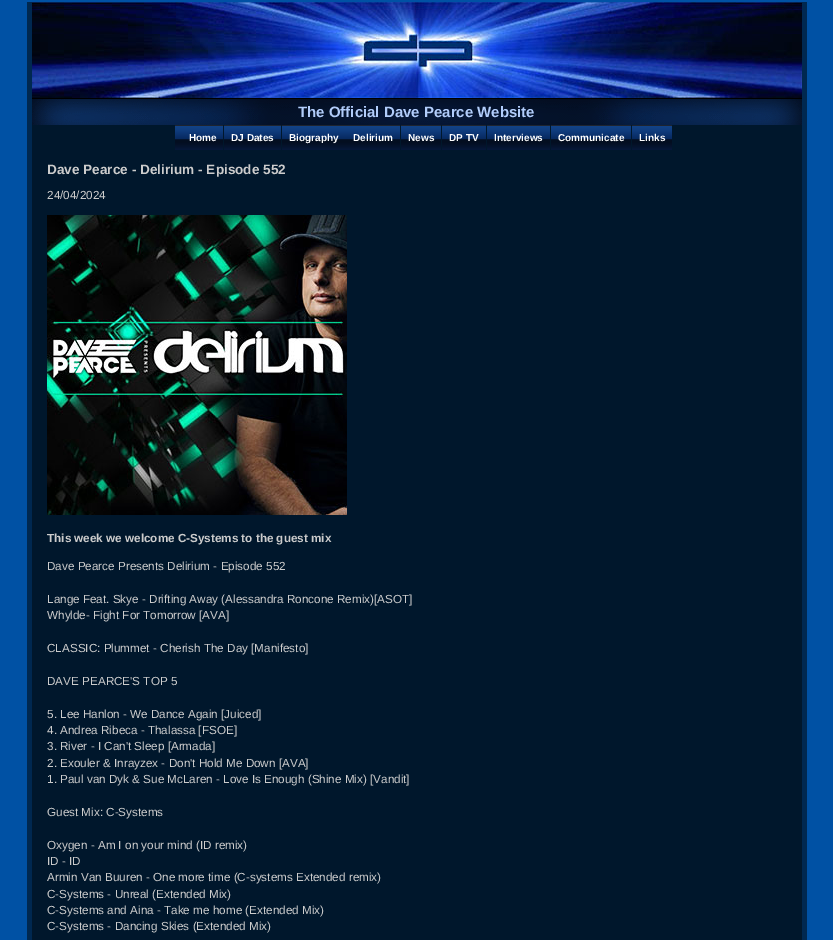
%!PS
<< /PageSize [833 940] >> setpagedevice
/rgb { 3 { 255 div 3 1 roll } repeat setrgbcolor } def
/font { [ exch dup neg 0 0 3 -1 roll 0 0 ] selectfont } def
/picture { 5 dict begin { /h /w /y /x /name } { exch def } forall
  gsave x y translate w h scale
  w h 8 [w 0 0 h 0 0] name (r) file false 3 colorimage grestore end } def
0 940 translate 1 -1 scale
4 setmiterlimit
0 81 164 rgb
0 0 833 940 rectfill
(img/1.rgb) 27 2 780 938 picture
(img/2.rgb) 32 2 770 96 picture
(img/3.rgb) 32 99 770 26 picture
0 0 0 rgb
32 98 770 1 rectfill
(img/4.rgb) 175 125 48 25 picture
(img/5.rgb) 224 125 57 25 picture
(img/6.rgb) 282 125 64 25 picture
(img/7.rgb) 346 125 54 25 picture
(img/8.rgb) 401 125 40 25 picture
(img/9.rgb) 442 125 44 25 picture
(img/10.rgb) 487 125 63 25 picture
(img/11.rgb) 551 125 80 25 picture
(img/8.rgb) 632 125 40 25 picture
(img/12.rgb) 47 215 300 300 picture
/LiberationSans-Bold 15 font
178 205 251 rgb
298 117 moveto (The Official Dave Pearce Website) show
/LiberationSans-Bold 10 font
255 255 255 rgb
[
  [(Home) 189 141]
  [(DJ Dates) 231 141]
  [(Biography) 289 141]
  [(Delirium) 353 141]
  [(News) 408 141]
  [(DP TV) 449 141]
  [(Interviews) 494 141]
  [(Communicate) 558 141]
  [(Links) 639 141]
] { aload pop moveto show } forall
/LiberationSans-Bold 13.6 font
204 204 204 rgb
47 174 moveto (Dave Pearce - Delirium - Episode 552) show
/LiberationSans-Regular 11.7 font
47 199 moveto (24/04/2024) show
/LiberationSans-Bold 11.7 font
47 542 moveto (This week we welcome C-Systems to the guest mix) show
/LiberationSans-Regular 11.7 font
[
  [(Dave Pearce Presents Delirium - Episode 552) 47 570]
  [(Lange Feat. Skye - Drifting Away \(Alessandra Roncone Remix\)[ASOT]) 47 603]
  [(Whylde- Fight For Tomorrow [AVA]) 47 619]
  [(CLASSIC: Plummet - Cherish The Day [Manifesto]) 47 652]
  [(DAVE PEARCE'S TOP 5) 47 685]
  [(5. Lee Hanlon - We Dance Again [Juiced]) 47 718]
  [(4. Andrea Ribeca - Thalassa [FSOE]) 47 734]
  [(3. River - I Can't Sleep [Armada]) 47 750]
  [(2. Exouler & Inrayzex - Don't Hold Me Down [AVA]) 47 767]
  [(1. Paul van Dyk & Sue McLaren - Love Is Enough \(Shine Mix\) [Vandit]) 47 783]
  [(Guest Mix: C-Systems) 47 816]
  [(Oxygen - Am I on your mind \(ID remix\)) 47 849]
  [(ID - ID) 47 865]
  [(Armin Van Buuren - One more time \(C-systems Extended remix\)) 47 881]
  [(C-Systems - Unreal \(Extended Mix\)) 47 898]
  [(C-Systems and Aina - Take me home \(Extended Mix\)) 47 914]
  [(C-Systems - Dancing Skies \(Extended Mix\)) 47 930]
] { aload pop moveto show } forall
showpage
